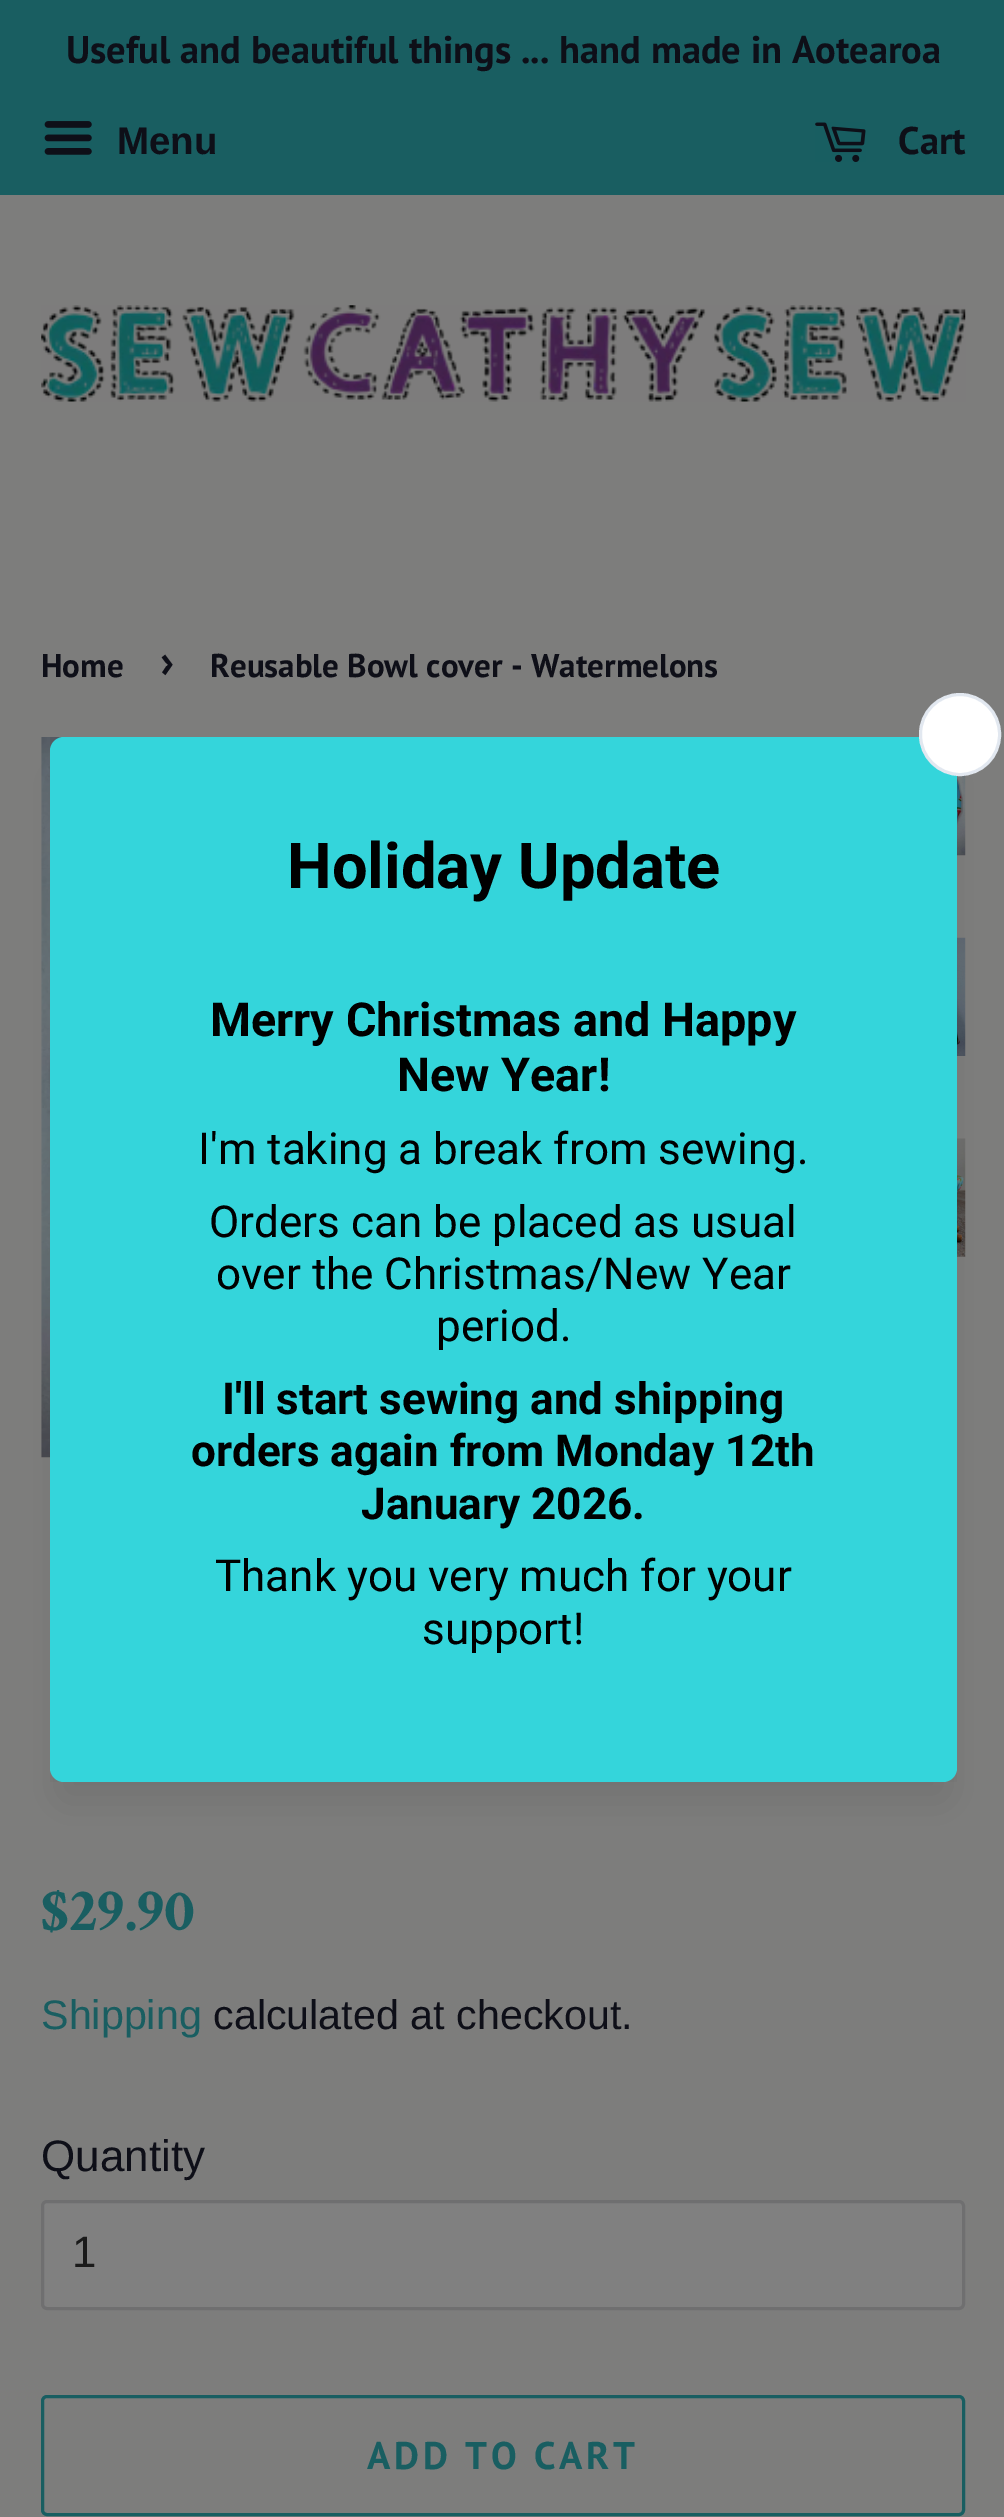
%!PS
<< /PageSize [1004 2517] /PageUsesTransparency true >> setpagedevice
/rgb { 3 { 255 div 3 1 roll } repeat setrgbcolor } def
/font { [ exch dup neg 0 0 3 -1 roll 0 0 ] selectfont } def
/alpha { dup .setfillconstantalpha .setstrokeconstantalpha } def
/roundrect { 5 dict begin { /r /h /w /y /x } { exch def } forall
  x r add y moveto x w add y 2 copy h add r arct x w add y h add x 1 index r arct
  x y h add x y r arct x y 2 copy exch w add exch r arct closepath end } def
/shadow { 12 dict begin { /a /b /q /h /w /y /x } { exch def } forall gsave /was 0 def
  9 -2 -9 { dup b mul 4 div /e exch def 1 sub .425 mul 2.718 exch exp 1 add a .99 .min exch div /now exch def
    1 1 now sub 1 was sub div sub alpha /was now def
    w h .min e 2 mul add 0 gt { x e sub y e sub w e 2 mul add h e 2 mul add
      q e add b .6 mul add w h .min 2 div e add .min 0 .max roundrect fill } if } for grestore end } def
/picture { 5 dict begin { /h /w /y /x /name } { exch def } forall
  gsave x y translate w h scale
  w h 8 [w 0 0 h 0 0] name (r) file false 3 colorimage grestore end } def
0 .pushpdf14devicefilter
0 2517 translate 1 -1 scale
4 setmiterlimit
125 125 124 rgb
0 0 1004 2517 rectfill
25 94 97 rgb
0 0 1004 195 rectfill
(img/1.rgb) 44 121 48 34 picture
(img/2.rgb) 815 122 51 40 picture
(img/3.rgb) 41 305 925 97 picture
(img/4.rgb) 41 737 23 721 picture
(img/5.rgb) 957 775 9 81 picture
(img/6.rgb) 957 937 9 119 picture
(img/7.rgb) 957 1138 9 119 picture
128 128 128 rgb
42.5 2201.5 921 107 4.5 roundrect gsave fill grestore
111 111 112 rgb
3 setlinewidth
stroke
25 94 97 rgb
42.5 2396.5 921 118 4.5 roundrect stroke
0 0 0 rgb
58 773 891 1028 6 20.5 0.1 shadow
gsave
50 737 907 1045 rectclip
58 745 891 1029 6 27.5 0.12 shadow
grestore
52 213 219 rgb
50 737 907 1045 14 roundrect fill
255 255 255 rgb
920.5 694.5 79 80 39.5 roundrect gsave fill grestore
226 232 240 rgb
stroke
/PTSans-Bold 38.5 font
14 15 24 rgb
66 63 moveto (Useful and beautiful things ... hand made in Aotearoa) show
/LiberationSans-Bold 38.5 font
117 154 moveto (Menu) show
/PTSans-Bold 38.5 font
898 154 moveto (Cart) show
/PTSans-Bold 33 font
41 677 moveto (Home) show
/PTSans-Bold 46 font
160 677 moveto (›) show
/PTSans-Bold 33 font
210 677 moveto (Reusable Bowl cover - Watermelons) show
/CrimsonText-Bold 61.5 font
25 94 97 rgb
41 1930 moveto ($29.90) show
/LiberationSans-Regular 41.25 font
41 2029 moveto (Shipping) show
14 15 24 rgb
213 2029 moveto (calculated at checkout.) show
/LiberationSans-Regular 44 font
41 2171 moveto (Quantity) show
26 26 26 rgb
72 2267 moveto (1) show
/PTSans-Bold 38.5 font
25 94 97 rgb
367 2469 moveto 3.8 0 (ADD TO CART) ashow
/Roboto-Bold 63.25 font
0 0 0 rgb
287 888 moveto (Holiday Update) show
/Roboto-Bold 46.75 font
210 1036 moveto (Merry Christmas and Happy) show
397 1091 moveto (New Year!) show
/Roboto-Regular 44 font
[
  [(I'm taking a break from sewing.) 198 1164]
  [(Orders can be placed as usual) 209 1237]
  [(over the Christmas/New Year) 216 1289]
  [(period.) 436 1341]
] { aload pop moveto show } forall
/Roboto-Bold 44 font
[
  [(I'll start sewing and shipping) 222 1414]
  [(orders again from Monday 12th) 191 1466]
  [(January 2026.) 361 1519]
] { aload pop moveto show } forall
/Roboto-Regular 44 font
215 1591 moveto (Thank you very much for your) show
422 1644 moveto (support!) show
.poppdf14devicefilter showpage
